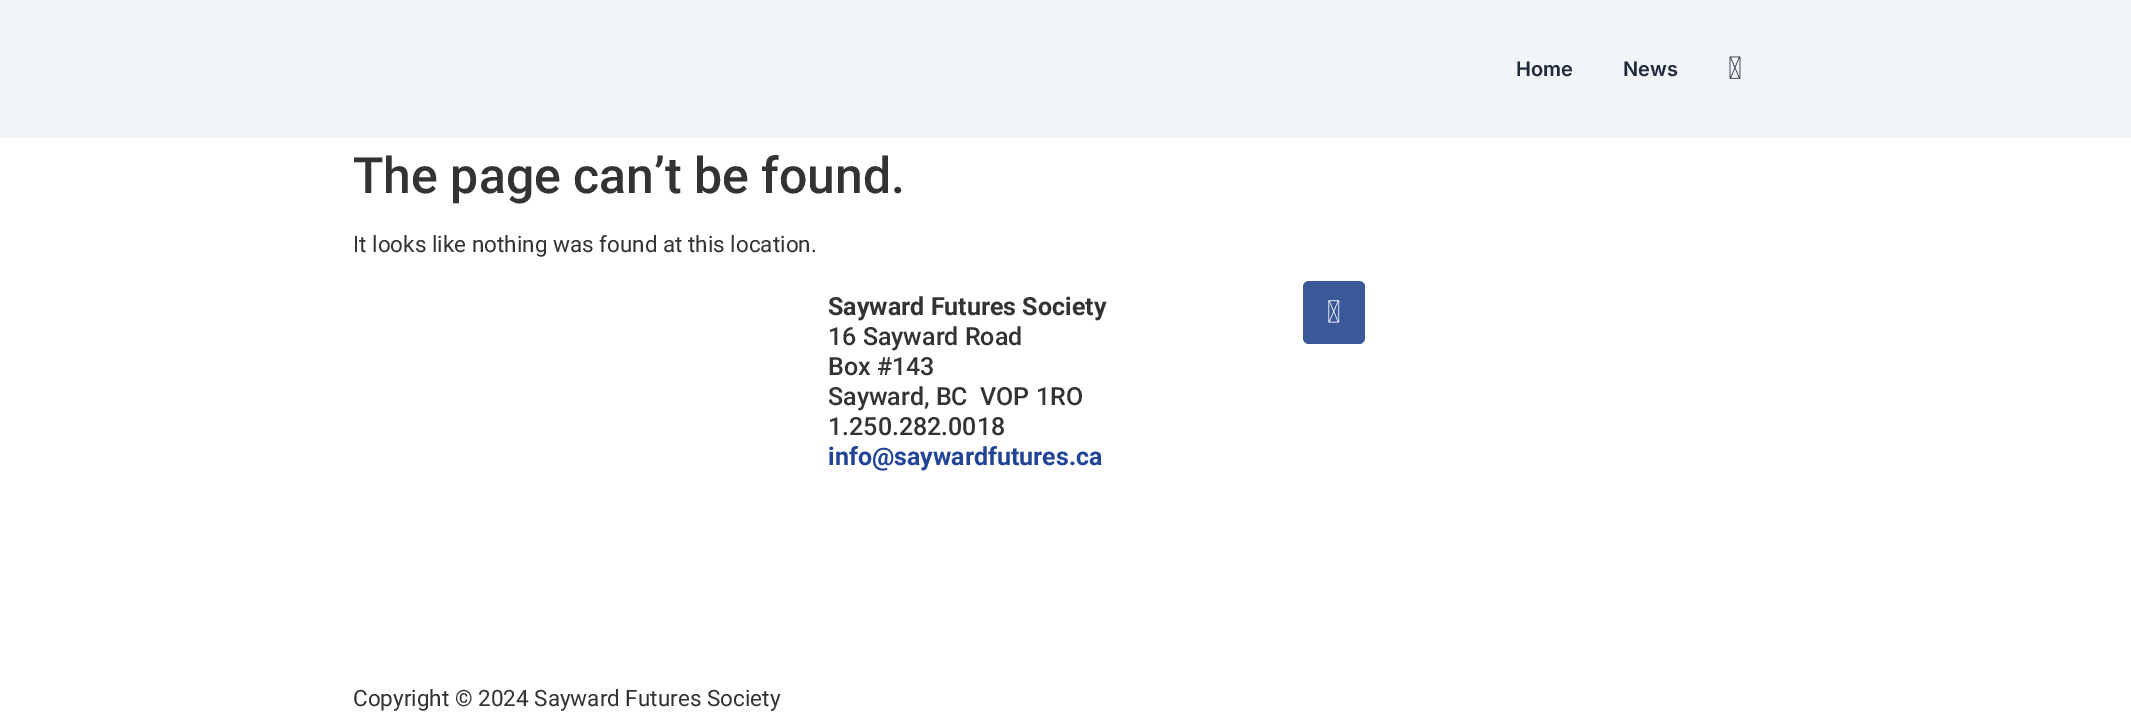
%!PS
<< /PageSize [2131 718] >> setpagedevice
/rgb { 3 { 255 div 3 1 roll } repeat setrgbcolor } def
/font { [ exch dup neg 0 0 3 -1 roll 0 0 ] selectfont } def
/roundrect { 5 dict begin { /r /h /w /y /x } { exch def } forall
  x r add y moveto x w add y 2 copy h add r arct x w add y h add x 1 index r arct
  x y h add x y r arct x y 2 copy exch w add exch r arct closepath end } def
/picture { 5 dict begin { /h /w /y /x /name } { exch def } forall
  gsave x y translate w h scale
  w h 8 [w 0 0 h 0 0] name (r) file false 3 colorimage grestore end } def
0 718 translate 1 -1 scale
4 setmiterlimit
255 255 255 rgb
0 0 2131 718 rectfill
242 245 247 rgb
0 0 2131 138 rectfill
(img/1.rgb) 1729 56 12 23 picture
59 89 152 rgb
1303 281 62 63 6 roundrect fill
(img/2.rgb) 1328 300 12 23 picture
/Inter-SemiBold 20 font
30 41 59 rgb
1516 76 moveto (Home) show
1623 76 moveto (News) show
/Roboto-Medium 50 font
51 51 51 rgb
353 193 moveto (The page can’t be found.) show
/Roboto-Regular 22.5 font
353 252 moveto (It looks like nothing was found at this location.) show
/Roboto-Bold 25 font
828 315 moveto (Sayward Futures Society) show
/Roboto-Medium 25 font
[
  [(16 Sayward Road) 828 345]
  [(Box #143) 828 375]
  [(Sayward, BC  VOP 1RO) 828 405]
  [(1.250.282.0018) 828 435]
] { aload pop moveto show } forall
/Roboto-Bold 25 font
33 68 151 rgb
828 465 moveto (info@saywardfutures.ca) show
/Roboto-Regular 22.5 font
51 51 51 rgb
353 706 moveto (Copyright © 2024 Sayward Futures Society) show
showpage
